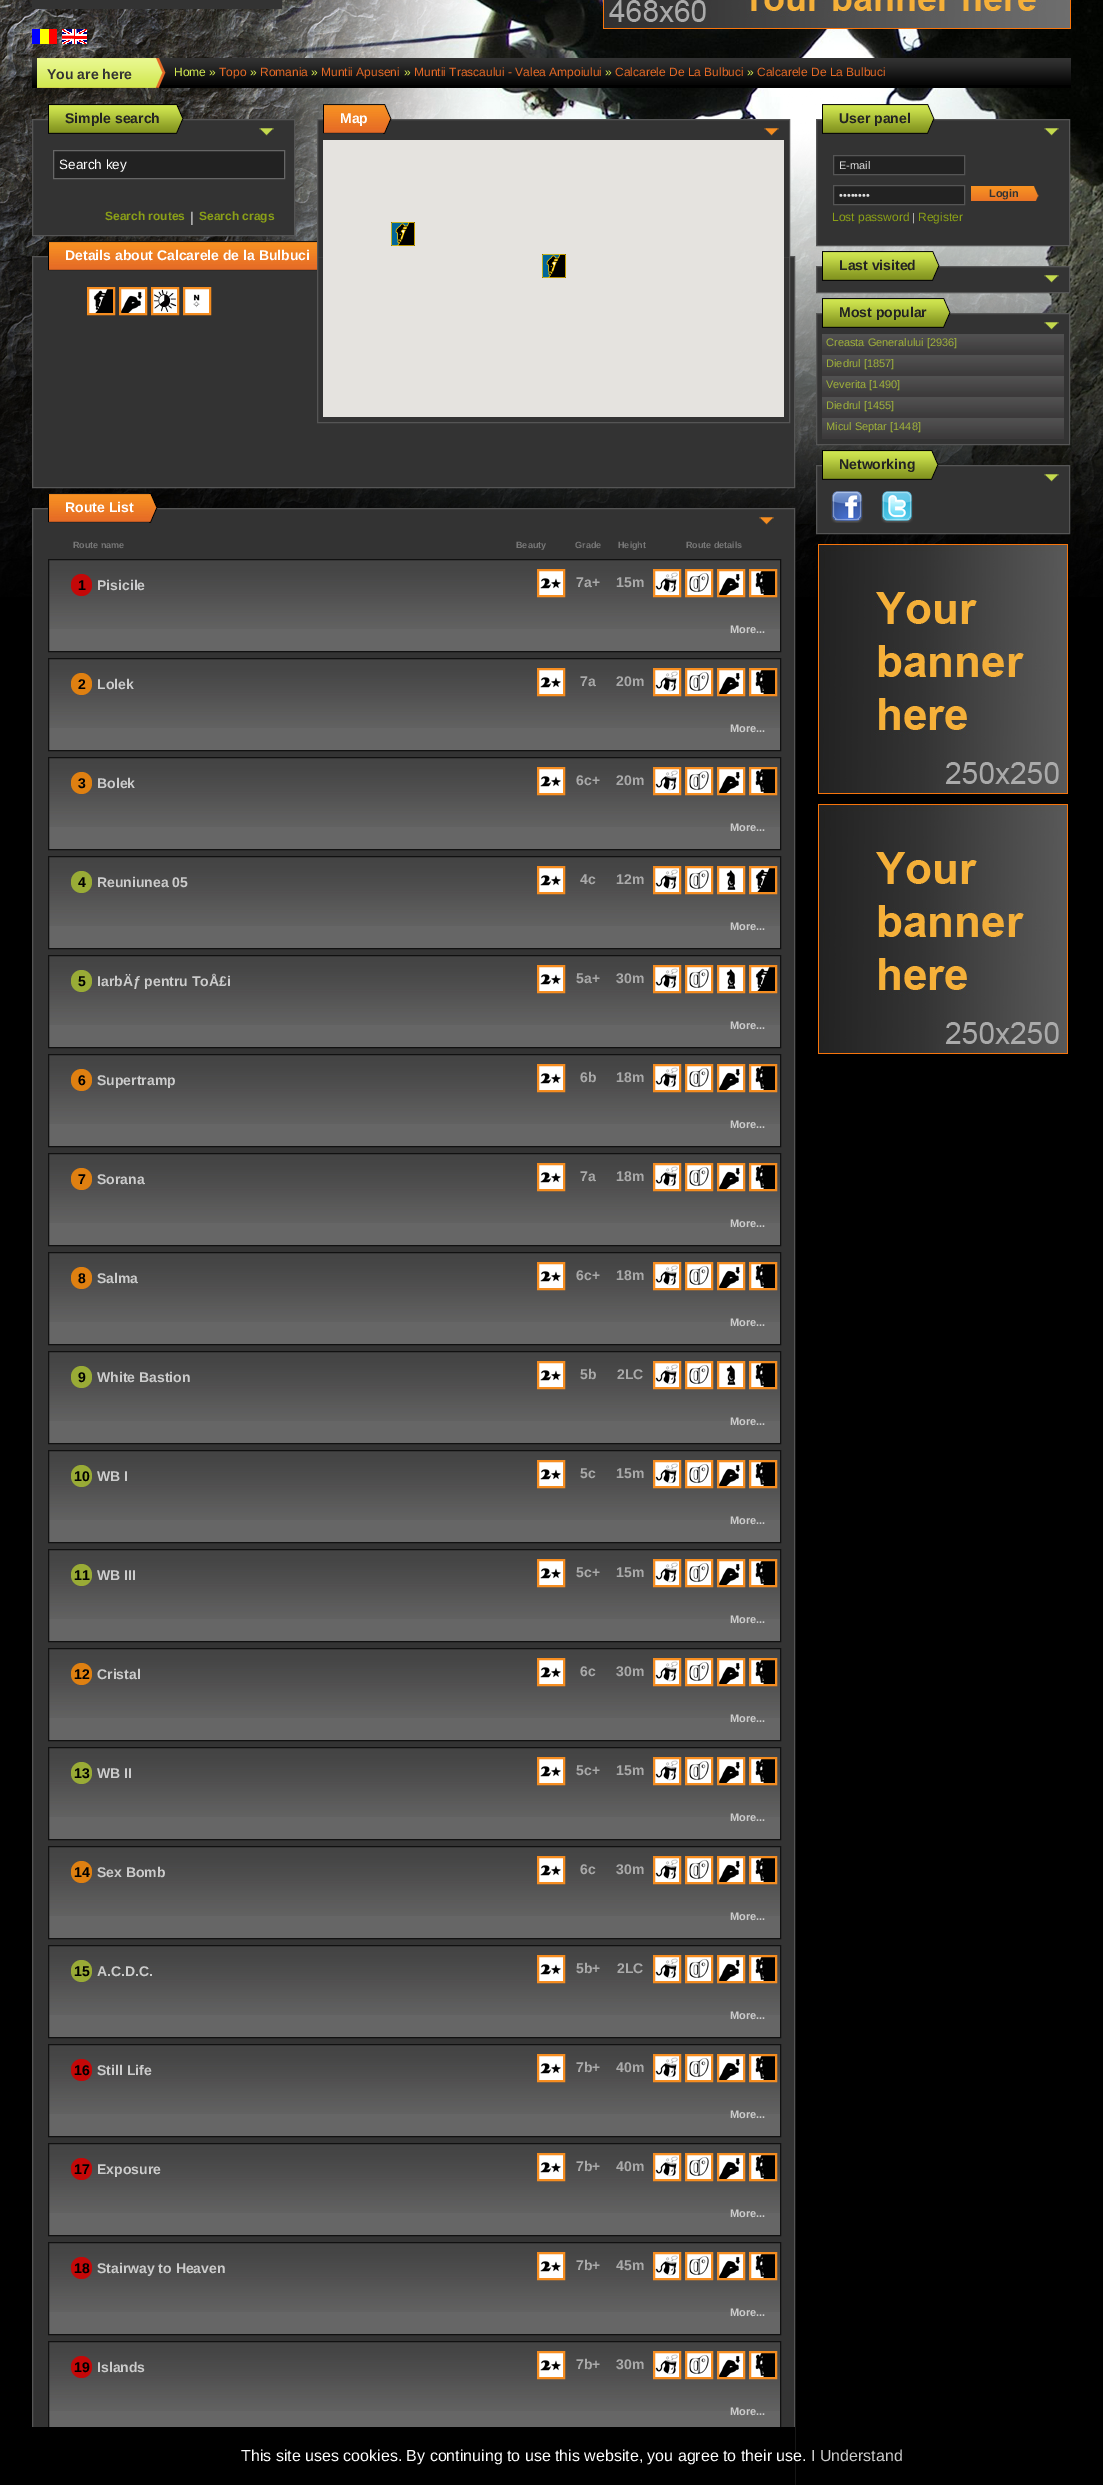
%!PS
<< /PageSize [1103 2485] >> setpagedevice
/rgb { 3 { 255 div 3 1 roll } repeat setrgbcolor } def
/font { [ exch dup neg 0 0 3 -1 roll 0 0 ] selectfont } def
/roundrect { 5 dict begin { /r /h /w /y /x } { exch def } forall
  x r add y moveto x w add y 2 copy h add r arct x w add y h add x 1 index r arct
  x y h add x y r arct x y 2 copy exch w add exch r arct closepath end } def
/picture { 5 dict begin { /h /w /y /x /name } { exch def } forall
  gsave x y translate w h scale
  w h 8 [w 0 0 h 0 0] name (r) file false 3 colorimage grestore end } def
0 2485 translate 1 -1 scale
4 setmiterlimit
0 0 0 rgb
0 0 1103 2485 rectfill
(img/1.rgb) 0 0 1103 597 picture
(img/2.rgb) 236 0 867 524 picture
51 51 51 rgb
32 0 250 9 rectfill
(img/3.rgb) 603 0 468 29 picture
(img/4.rgb) 32 29 25 15 picture
(img/5.rgb) 62 29 25 15 picture
0 0 0 rgb
32 85 1039 3 rectfill
(img/6.rgb) 32 58 1039 27 picture
(img/7.rgb) 37 58 129 30 picture
51 51 51 rgb
32.5 119.5 moveto 294.5 119.5 lineto 294.5 235.5 lineto 32.5 235.5 lineto closepath gsave fill grestore
85 85 85 rgb
stroke
(img/8.rgb) 48 104 2 30 picture
(img/9.rgb) 50 104 125 30 picture
(img/10.rgb) 175 104 9 30 picture
(img/11.rgb) 259 128 15 8 picture
34 34 34 rgb
53.5 150.5 moveto 284.5 150.5 lineto 284.5 178.5 lineto 53.5 178.5 lineto closepath gsave fill grestore
102 102 102 rgb
stroke
51 51 51 rgb
32.5 256.5 moveto 794.5 256.5 lineto 794.5 487.5 lineto 32.5 487.5 lineto closepath gsave fill grestore
85 85 85 rgb
stroke
51 51 51 rgb
318 120 471 137 rectfill
85 85 85 rgb
317.5 119.5 472 303 rectstroke
(img/12.rgb) 323 104 2 30 picture
(img/13.rgb) 325 104 58 30 picture
(img/14.rgb) 383 104 9 30 picture
(img/15.rgb) 764 127 15 9 picture
229 227 223 rgb
323 140 461 277 rectfill
(img/16.rgb) 391 222 24 24 picture
(img/16.rgb) 542 254 24 24 picture
(img/12.rgb) 48 241 2 30 picture
(img/17.rgb) 50 241 267 30 picture
(img/18.rgb) 89 289 24 24 picture
246 141 32 rgb
2 setlinewidth
88 288 26 26 rectstroke
(img/19.rgb) 121 289 24 24 picture
120 288 26 26 rectstroke
(img/20.rgb) 153 289 24 24 picture
152 288 26 26 rectstroke
(img/21.rgb) 185 289 24 24 picture
184 288 26 26 rectstroke
51 51 51 rgb
33 509 761 1918 rectfill
85 85 85 rgb
1 setlinewidth
32.5 508.5 762 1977 rectstroke
(img/12.rgb) 48 493 2 30 picture
(img/22.rgb) 50 493 99 30 picture
(img/23.rgb) 149 493 9 30 picture
(img/15.rgb) 759 516 15 9 picture
102 102 102 rgb
49 629 731 22 rectfill
(img/24.rgb) 49 560 731 69 picture
17 17 17 rgb
48.5 559.5 732 92 rectstroke
196 8 8 rgb
71 574 21 22 10.5 roundrect fill
(img/25.rgb) 539 571 24 24 picture
246 141 32 rgb
2 setlinewidth
538 570 26 26 rectstroke
(img/26.rgb) 655 571 24 24 picture
654 570 26 26 rectstroke
(img/27.rgb) 687 571 24 24 picture
686 570 26 26 rectstroke
(img/19.rgb) 719 571 24 24 picture
718 570 26 26 rectstroke
(img/28.rgb) 751 571 24 24 picture
750 570 26 26 rectstroke
102 102 102 rgb
49 728 731 22 rectfill
(img/24.rgb) 49 659 731 69 picture
17 17 17 rgb
1 setlinewidth
48.5 658.5 732 92 rectstroke
223 128 17 rgb
71 673 21 22 10.5 roundrect fill
(img/25.rgb) 539 670 24 24 picture
246 141 32 rgb
2 setlinewidth
538 669 26 26 rectstroke
(img/26.rgb) 655 670 24 24 picture
654 669 26 26 rectstroke
(img/27.rgb) 687 670 24 24 picture
686 669 26 26 rectstroke
(img/19.rgb) 719 670 24 24 picture
718 669 26 26 rectstroke
(img/28.rgb) 751 670 24 24 picture
750 669 26 26 rectstroke
102 102 102 rgb
49 827 731 22 rectfill
(img/24.rgb) 49 758 731 69 picture
17 17 17 rgb
1 setlinewidth
48.5 757.5 732 92 rectstroke
223 128 17 rgb
71 772 21 22 10.5 roundrect fill
(img/25.rgb) 539 769 24 24 picture
246 141 32 rgb
2 setlinewidth
538 768 26 26 rectstroke
(img/26.rgb) 655 769 24 24 picture
654 768 26 26 rectstroke
(img/27.rgb) 687 769 24 24 picture
686 768 26 26 rectstroke
(img/19.rgb) 719 769 24 24 picture
718 768 26 26 rectstroke
(img/28.rgb) 751 769 24 24 picture
750 768 26 26 rectstroke
102 102 102 rgb
49 926 731 22 rectfill
(img/24.rgb) 49 857 731 69 picture
17 17 17 rgb
1 setlinewidth
48.5 856.5 732 92 rectstroke
153 171 54 rgb
71 871 21 22 10.5 roundrect fill
(img/25.rgb) 539 868 24 24 picture
246 141 32 rgb
2 setlinewidth
538 867 26 26 rectstroke
(img/26.rgb) 655 868 24 24 picture
654 867 26 26 rectstroke
(img/27.rgb) 687 868 24 24 picture
686 867 26 26 rectstroke
(img/29.rgb) 719 868 24 24 picture
718 867 26 26 rectstroke
(img/18.rgb) 751 868 24 24 picture
750 867 26 26 rectstroke
102 102 102 rgb
49 1025 731 22 rectfill
(img/24.rgb) 49 956 731 69 picture
17 17 17 rgb
1 setlinewidth
48.5 955.5 732 92 rectstroke
153 171 54 rgb
71 970 21 22 10.5 roundrect fill
(img/25.rgb) 539 967 24 24 picture
246 141 32 rgb
2 setlinewidth
538 966 26 26 rectstroke
(img/26.rgb) 655 967 24 24 picture
654 966 26 26 rectstroke
(img/27.rgb) 687 967 24 24 picture
686 966 26 26 rectstroke
(img/29.rgb) 719 967 24 24 picture
718 966 26 26 rectstroke
(img/18.rgb) 751 967 24 24 picture
750 966 26 26 rectstroke
102 102 102 rgb
49 1124 731 22 rectfill
(img/24.rgb) 49 1055 731 69 picture
17 17 17 rgb
1 setlinewidth
48.5 1054.5 732 92 rectstroke
223 128 17 rgb
71 1069 21 22 10.5 roundrect fill
(img/25.rgb) 539 1066 24 24 picture
246 141 32 rgb
2 setlinewidth
538 1065 26 26 rectstroke
(img/26.rgb) 655 1066 24 24 picture
654 1065 26 26 rectstroke
(img/27.rgb) 687 1066 24 24 picture
686 1065 26 26 rectstroke
(img/19.rgb) 719 1066 24 24 picture
718 1065 26 26 rectstroke
(img/28.rgb) 751 1066 24 24 picture
750 1065 26 26 rectstroke
102 102 102 rgb
49 1223 731 22 rectfill
(img/24.rgb) 49 1154 731 69 picture
17 17 17 rgb
1 setlinewidth
48.5 1153.5 732 92 rectstroke
223 128 17 rgb
71 1168 21 22 10.5 roundrect fill
(img/25.rgb) 539 1165 24 24 picture
246 141 32 rgb
2 setlinewidth
538 1164 26 26 rectstroke
(img/26.rgb) 655 1165 24 24 picture
654 1164 26 26 rectstroke
(img/27.rgb) 687 1165 24 24 picture
686 1164 26 26 rectstroke
(img/19.rgb) 719 1165 24 24 picture
718 1164 26 26 rectstroke
(img/28.rgb) 751 1165 24 24 picture
750 1164 26 26 rectstroke
102 102 102 rgb
49 1322 731 22 rectfill
(img/24.rgb) 49 1253 731 69 picture
17 17 17 rgb
1 setlinewidth
48.5 1252.5 732 92 rectstroke
223 128 17 rgb
71 1267 21 22 10.5 roundrect fill
(img/25.rgb) 539 1264 24 24 picture
246 141 32 rgb
2 setlinewidth
538 1263 26 26 rectstroke
(img/26.rgb) 655 1264 24 24 picture
654 1263 26 26 rectstroke
(img/27.rgb) 687 1264 24 24 picture
686 1263 26 26 rectstroke
(img/19.rgb) 719 1264 24 24 picture
718 1263 26 26 rectstroke
(img/28.rgb) 751 1264 24 24 picture
750 1263 26 26 rectstroke
102 102 102 rgb
49 1421 731 22 rectfill
(img/24.rgb) 49 1352 731 69 picture
17 17 17 rgb
1 setlinewidth
48.5 1351.5 732 92 rectstroke
153 171 54 rgb
71 1366 21 22 10.5 roundrect fill
(img/25.rgb) 539 1363 24 24 picture
246 141 32 rgb
2 setlinewidth
538 1362 26 26 rectstroke
(img/26.rgb) 655 1363 24 24 picture
654 1362 26 26 rectstroke
(img/27.rgb) 687 1363 24 24 picture
686 1362 26 26 rectstroke
(img/29.rgb) 719 1363 24 24 picture
718 1362 26 26 rectstroke
(img/28.rgb) 751 1363 24 24 picture
750 1362 26 26 rectstroke
102 102 102 rgb
49 1520 731 22 rectfill
(img/24.rgb) 49 1451 731 69 picture
17 17 17 rgb
1 setlinewidth
48.5 1450.5 732 92 rectstroke
153 171 54 rgb
71 1465 21 22 10.5 roundrect fill
(img/25.rgb) 539 1462 24 24 picture
246 141 32 rgb
2 setlinewidth
538 1461 26 26 rectstroke
(img/26.rgb) 655 1462 24 24 picture
654 1461 26 26 rectstroke
(img/27.rgb) 687 1462 24 24 picture
686 1461 26 26 rectstroke
(img/19.rgb) 719 1462 24 24 picture
718 1461 26 26 rectstroke
(img/28.rgb) 751 1462 24 24 picture
750 1461 26 26 rectstroke
102 102 102 rgb
49 1619 731 22 rectfill
(img/24.rgb) 49 1550 731 69 picture
17 17 17 rgb
1 setlinewidth
48.5 1549.5 732 92 rectstroke
153 171 54 rgb
71 1564 21 22 10.5 roundrect fill
(img/25.rgb) 539 1561 24 24 picture
246 141 32 rgb
2 setlinewidth
538 1560 26 26 rectstroke
(img/26.rgb) 655 1561 24 24 picture
654 1560 26 26 rectstroke
(img/27.rgb) 687 1561 24 24 picture
686 1560 26 26 rectstroke
(img/19.rgb) 719 1561 24 24 picture
718 1560 26 26 rectstroke
(img/28.rgb) 751 1561 24 24 picture
750 1560 26 26 rectstroke
102 102 102 rgb
49 1718 731 22 rectfill
(img/24.rgb) 49 1649 731 69 picture
17 17 17 rgb
1 setlinewidth
48.5 1648.5 732 92 rectstroke
223 128 17 rgb
71 1663 21 22 10.5 roundrect fill
(img/25.rgb) 539 1660 24 24 picture
246 141 32 rgb
2 setlinewidth
538 1659 26 26 rectstroke
(img/26.rgb) 655 1660 24 24 picture
654 1659 26 26 rectstroke
(img/27.rgb) 687 1660 24 24 picture
686 1659 26 26 rectstroke
(img/19.rgb) 719 1660 24 24 picture
718 1659 26 26 rectstroke
(img/28.rgb) 751 1660 24 24 picture
750 1659 26 26 rectstroke
102 102 102 rgb
49 1817 731 22 rectfill
(img/24.rgb) 49 1748 731 69 picture
17 17 17 rgb
1 setlinewidth
48.5 1747.5 732 92 rectstroke
153 171 54 rgb
71 1762 21 22 10.5 roundrect fill
(img/25.rgb) 539 1759 24 24 picture
246 141 32 rgb
2 setlinewidth
538 1758 26 26 rectstroke
(img/26.rgb) 655 1759 24 24 picture
654 1758 26 26 rectstroke
(img/27.rgb) 687 1759 24 24 picture
686 1758 26 26 rectstroke
(img/19.rgb) 719 1759 24 24 picture
718 1758 26 26 rectstroke
(img/28.rgb) 751 1759 24 24 picture
750 1758 26 26 rectstroke
102 102 102 rgb
49 1916 731 22 rectfill
(img/24.rgb) 49 1847 731 69 picture
17 17 17 rgb
1 setlinewidth
48.5 1846.5 732 92 rectstroke
223 128 17 rgb
71 1861 21 22 10.5 roundrect fill
(img/25.rgb) 539 1858 24 24 picture
246 141 32 rgb
2 setlinewidth
538 1857 26 26 rectstroke
(img/26.rgb) 655 1858 24 24 picture
654 1857 26 26 rectstroke
(img/27.rgb) 687 1858 24 24 picture
686 1857 26 26 rectstroke
(img/19.rgb) 719 1858 24 24 picture
718 1857 26 26 rectstroke
(img/28.rgb) 751 1858 24 24 picture
750 1857 26 26 rectstroke
102 102 102 rgb
49 2015 731 22 rectfill
(img/24.rgb) 49 1946 731 69 picture
17 17 17 rgb
1 setlinewidth
48.5 1945.5 732 92 rectstroke
153 171 54 rgb
71 1960 21 22 10.5 roundrect fill
(img/25.rgb) 539 1957 24 24 picture
246 141 32 rgb
2 setlinewidth
538 1956 26 26 rectstroke
(img/26.rgb) 655 1957 24 24 picture
654 1956 26 26 rectstroke
(img/27.rgb) 687 1957 24 24 picture
686 1956 26 26 rectstroke
(img/19.rgb) 719 1957 24 24 picture
718 1956 26 26 rectstroke
(img/28.rgb) 751 1957 24 24 picture
750 1956 26 26 rectstroke
102 102 102 rgb
49 2114 731 22 rectfill
(img/24.rgb) 49 2045 731 69 picture
17 17 17 rgb
1 setlinewidth
48.5 2044.5 732 92 rectstroke
196 8 8 rgb
71 2059 21 22 10.5 roundrect fill
(img/25.rgb) 539 2056 24 24 picture
246 141 32 rgb
2 setlinewidth
538 2055 26 26 rectstroke
(img/26.rgb) 655 2056 24 24 picture
654 2055 26 26 rectstroke
(img/27.rgb) 687 2056 24 24 picture
686 2055 26 26 rectstroke
(img/19.rgb) 719 2056 24 24 picture
718 2055 26 26 rectstroke
(img/28.rgb) 751 2056 24 24 picture
750 2055 26 26 rectstroke
102 102 102 rgb
49 2213 731 22 rectfill
(img/24.rgb) 49 2144 731 69 picture
17 17 17 rgb
1 setlinewidth
48.5 2143.5 732 92 rectstroke
196 8 8 rgb
71 2158 21 22 10.5 roundrect fill
(img/25.rgb) 539 2155 24 24 picture
246 141 32 rgb
2 setlinewidth
538 2154 26 26 rectstroke
(img/26.rgb) 655 2155 24 24 picture
654 2154 26 26 rectstroke
(img/27.rgb) 687 2155 24 24 picture
686 2154 26 26 rectstroke
(img/19.rgb) 719 2155 24 24 picture
718 2154 26 26 rectstroke
(img/28.rgb) 751 2155 24 24 picture
750 2154 26 26 rectstroke
102 102 102 rgb
49 2312 731 22 rectfill
(img/24.rgb) 49 2243 731 69 picture
17 17 17 rgb
1 setlinewidth
48.5 2242.5 732 92 rectstroke
196 8 8 rgb
71 2257 21 22 10.5 roundrect fill
(img/25.rgb) 539 2254 24 24 picture
246 141 32 rgb
2 setlinewidth
538 2253 26 26 rectstroke
(img/26.rgb) 655 2254 24 24 picture
654 2253 26 26 rectstroke
(img/27.rgb) 687 2254 24 24 picture
686 2253 26 26 rectstroke
(img/19.rgb) 719 2254 24 24 picture
718 2253 26 26 rectstroke
(img/28.rgb) 751 2254 24 24 picture
750 2253 26 26 rectstroke
102 102 102 rgb
49 2411 731 16 rectfill
(img/24.rgb) 49 2342 731 69 picture
17 17 17 rgb
1 setlinewidth
48.5 2341.5 732 92 rectstroke
196 8 8 rgb
71 2356 21 22 10.5 roundrect fill
(img/25.rgb) 539 2353 24 24 picture
246 141 32 rgb
2 setlinewidth
538 2352 26 26 rectstroke
(img/26.rgb) 655 2353 24 24 picture
654 2352 26 26 rectstroke
(img/27.rgb) 687 2353 24 24 picture
686 2352 26 26 rectstroke
(img/19.rgb) 719 2353 24 24 picture
718 2352 26 26 rectstroke
(img/28.rgb) 751 2353 24 24 picture
750 2352 26 26 rectstroke
51 51 51 rgb
816.5 119.5 moveto 1069.5 119.5 lineto 1069.5 245.5 lineto 816.5 245.5 lineto closepath gsave fill grestore
85 85 85 rgb
1 setlinewidth
stroke
(img/30.rgb) 822 104 2 30 picture
(img/31.rgb) 824 104 102 30 picture
(img/32.rgb) 926 104 9 30 picture
(img/11.rgb) 1044 128 15 8 picture
34 34 34 rgb
833.5 155.5 moveto 964.5 155.5 lineto 964.5 174.5 lineto 833.5 174.5 lineto closepath gsave fill grestore
85 85 85 rgb
stroke
34 34 34 rgb
833.5 185.5 moveto 964.5 185.5 lineto 964.5 204.5 lineto 833.5 204.5 lineto closepath gsave fill grestore
85 85 85 rgb
stroke
(img/33.rgb) 971 186 68 15 picture
51 51 51 rgb
816.5 266.5 moveto 1069.5 266.5 lineto 1069.5 292.5 lineto 816.5 292.5 lineto closepath gsave fill grestore
85 85 85 rgb
stroke
(img/34.rgb) 822 251 2 30 picture
(img/35.rgb) 824 251 107 30 picture
(img/36.rgb) 931 251 9 30 picture
(img/11.rgb) 1044 275 15 8 picture
51 51 51 rgb
816.5 313.5 moveto 1069.5 313.5 lineto 1069.5 444.5 lineto 816.5 444.5 lineto closepath gsave fill grestore
85 85 85 rgb
stroke
(img/37.rgb) 822 298 2 30 picture
(img/38.rgb) 824 298 118 30 picture
(img/39.rgb) 942 298 9 30 picture
(img/11.rgb) 1044 322 15 8 picture
(img/40.rgb) 822 334 242 21 picture
(img/40.rgb) 822 355 242 21 picture
(img/40.rgb) 822 376 242 21 picture
(img/40.rgb) 822 397 242 21 picture
(img/40.rgb) 822 418 242 21 picture
51 51 51 rgb
816.5 465.5 moveto 1069.5 465.5 lineto 1069.5 533.5 lineto 816.5 533.5 lineto closepath gsave fill grestore
85 85 85 rgb
stroke
(img/41.rgb) 822 450 2 30 picture
(img/42.rgb) 824 450 106 30 picture
(img/43.rgb) 930 450 9 30 picture
(img/11.rgb) 1044 474 15 8 picture
(img/44.rgb) 831 491 32 32 picture
(img/45.rgb) 881 491 32 32 picture
(img/46.rgb) 818 544 250 250 picture
(img/46.rgb) 818 804 250 250 picture
0 0 0 rgb
32 2427 763 58 rectfill
/LiberationSans-Bold 14 font
51 51 51 rgb
47 79 moveto (You are here) show
/LiberationSans-Regular 12 font
209 231 81 rgb
174 76 moveto (Home ») show
228 105 38 rgb
219 76 moveto (Topo) show
209 231 81 rgb
250 76 moveto (») show
228 105 38 rgb
260 76 moveto (Romania) show
209 231 81 rgb
311 76 moveto (») show
228 105 38 rgb
321 76 moveto (Muntii Apuseni) show
209 231 81 rgb
404 76 moveto (») show
228 105 38 rgb
414 76 moveto (Muntii Trascaului - Valea Ampoiului) show
209 231 81 rgb
605 76 moveto (») show
228 105 38 rgb
615 76 moveto (Calcarele De La Bulbuci) show
209 231 81 rgb
747 76 moveto (») show
228 105 38 rgb
757 76 moveto (Calcarele De La Bulbuci) show
/LiberationSans-Bold 14 font
34 34 34 rgb
65 123 moveto (Simple search) show
/LiberationSans-Regular 13.5 font
255 255 255 rgb
59 169 moveto (Search key) show
/LiberationSans-Bold 12 font
139 160 23 rgb
105 220 moveto (Search routes) show
/LiberationSans-Bold 14 font
170 170 170 rgb
190 222 moveto (|) show
/LiberationSans-Bold 12 font
139 160 23 rgb
199 220 moveto (Search crags) show
/LiberationSans-Bold 14 font
255 255 255 rgb
[
  [(Map) 340 123]
  [(Details about Calcarele de la Bulbuci) 65 260]
  [(Route List) 65 512]
] { aload pop moveto show } forall
/LiberationSans-Bold 9 font
119 119 119 rgb
[
  [(Route name) 73 548]
  [(Beauty) 516 548]
  [(Grade) 575 548]
  [(Height) 618 548]
  [(Route details) 686 548]
] { aload pop moveto show } forall
/LiberationSans-Bold 14 font
0 0 0 rgb
78 590 moveto (1) show
204 204 204 rgb
97 590 moveto (Pisicile) show
170 170 170 rgb
576 587 moveto (7a+) show
616 587 moveto (15m) show
/LiberationSans-Bold 11 font
204 204 204 rgb
730 633 moveto (More...) show
/LiberationSans-Bold 14 font
0 0 0 rgb
78 689 moveto (2) show
204 204 204 rgb
97 689 moveto (Lolek) show
170 170 170 rgb
580 686 moveto (7a) show
616 686 moveto (20m) show
/LiberationSans-Bold 11 font
204 204 204 rgb
730 732 moveto (More...) show
/LiberationSans-Bold 14 font
0 0 0 rgb
78 788 moveto (3) show
204 204 204 rgb
97 788 moveto (Bolek) show
170 170 170 rgb
576 785 moveto (6c+) show
616 785 moveto (20m) show
/LiberationSans-Bold 11 font
204 204 204 rgb
730 831 moveto (More...) show
/LiberationSans-Bold 14 font
0 0 0 rgb
78 887 moveto (4) show
204 204 204 rgb
97 887 moveto (Reuniunea 05) show
170 170 170 rgb
580 884 moveto (4c) show
616 884 moveto (12m) show
/LiberationSans-Bold 11 font
204 204 204 rgb
730 930 moveto (More...) show
/LiberationSans-Bold 14 font
0 0 0 rgb
78 986 moveto (5) show
204 204 204 rgb
97 986 moveto (IarbÄƒ pentru ToÅ£i) show
170 170 170 rgb
576 983 moveto (5a+) show
616 983 moveto (30m) show
/LiberationSans-Bold 11 font
204 204 204 rgb
730 1029 moveto (More...) show
/LiberationSans-Bold 14 font
0 0 0 rgb
78 1085 moveto (6) show
204 204 204 rgb
97 1085 moveto (Supertramp) show
170 170 170 rgb
580 1082 moveto (6b) show
616 1082 moveto (18m) show
/LiberationSans-Bold 11 font
204 204 204 rgb
730 1128 moveto (More...) show
/LiberationSans-Bold 14 font
0 0 0 rgb
78 1184 moveto (7) show
204 204 204 rgb
97 1184 moveto (Sorana) show
170 170 170 rgb
580 1181 moveto (7a) show
616 1181 moveto (18m) show
/LiberationSans-Bold 11 font
204 204 204 rgb
730 1227 moveto (More...) show
/LiberationSans-Bold 14 font
0 0 0 rgb
78 1283 moveto (8) show
204 204 204 rgb
97 1283 moveto (Salma) show
170 170 170 rgb
576 1280 moveto (6c+) show
616 1280 moveto (18m) show
/LiberationSans-Bold 11 font
204 204 204 rgb
730 1326 moveto (More...) show
/LiberationSans-Bold 14 font
0 0 0 rgb
78 1382 moveto (9) show
204 204 204 rgb
97 1382 moveto (White Bastion) show
170 170 170 rgb
580 1379 moveto (5b) show
617 1379 moveto (2LC) show
/LiberationSans-Bold 11 font
204 204 204 rgb
730 1425 moveto (More...) show
/LiberationSans-Bold 14 font
0 0 0 rgb
74 1481 moveto (10) show
204 204 204 rgb
97 1481 moveto (WB I) show
170 170 170 rgb
580 1478 moveto (5c) show
616 1478 moveto (15m) show
/LiberationSans-Bold 11 font
204 204 204 rgb
730 1524 moveto (More...) show
/LiberationSans-Bold 14 font
0 0 0 rgb
74 1580 moveto (11) show
204 204 204 rgb
97 1580 moveto (WB III) show
170 170 170 rgb
576 1577 moveto (5c+) show
616 1577 moveto (15m) show
/LiberationSans-Bold 11 font
204 204 204 rgb
730 1623 moveto (More...) show
/LiberationSans-Bold 14 font
0 0 0 rgb
74 1679 moveto (12) show
204 204 204 rgb
97 1679 moveto (Cristal) show
170 170 170 rgb
580 1676 moveto (6c) show
616 1676 moveto (30m) show
/LiberationSans-Bold 11 font
204 204 204 rgb
730 1722 moveto (More...) show
/LiberationSans-Bold 14 font
0 0 0 rgb
74 1778 moveto (13) show
204 204 204 rgb
97 1778 moveto (WB II) show
170 170 170 rgb
576 1775 moveto (5c+) show
616 1775 moveto (15m) show
/LiberationSans-Bold 11 font
204 204 204 rgb
730 1821 moveto (More...) show
/LiberationSans-Bold 14 font
0 0 0 rgb
74 1877 moveto (14) show
204 204 204 rgb
97 1877 moveto (Sex Bomb) show
170 170 170 rgb
580 1874 moveto (6c) show
616 1874 moveto (30m) show
/LiberationSans-Bold 11 font
204 204 204 rgb
730 1920 moveto (More...) show
/LiberationSans-Bold 14 font
0 0 0 rgb
74 1976 moveto (15) show
204 204 204 rgb
97 1976 moveto (A.C.D.C.) show
170 170 170 rgb
576 1973 moveto (5b+) show
617 1973 moveto (2LC) show
/LiberationSans-Bold 11 font
204 204 204 rgb
730 2019 moveto (More...) show
/LiberationSans-Bold 14 font
0 0 0 rgb
74 2075 moveto (16) show
204 204 204 rgb
97 2075 moveto (Still Life) show
170 170 170 rgb
576 2072 moveto (7b+) show
616 2072 moveto (40m) show
/LiberationSans-Bold 11 font
204 204 204 rgb
730 2118 moveto (More...) show
/LiberationSans-Bold 14 font
0 0 0 rgb
74 2174 moveto (17) show
204 204 204 rgb
97 2174 moveto (Exposure) show
170 170 170 rgb
576 2171 moveto (7b+) show
616 2171 moveto (40m) show
/LiberationSans-Bold 11 font
204 204 204 rgb
730 2217 moveto (More...) show
/LiberationSans-Bold 14 font
0 0 0 rgb
74 2273 moveto (18) show
204 204 204 rgb
97 2273 moveto (Stairway to Heaven) show
170 170 170 rgb
576 2270 moveto (7b+) show
616 2270 moveto (45m) show
/LiberationSans-Bold 11 font
204 204 204 rgb
730 2316 moveto (More...) show
/LiberationSans-Bold 14 font
0 0 0 rgb
74 2372 moveto (19) show
204 204 204 rgb
97 2372 moveto (Islands) show
170 170 170 rgb
576 2369 moveto (7b+) show
616 2369 moveto (30m) show
/LiberationSans-Bold 11 font
204 204 204 rgb
730 2415 moveto (More...) show
/LiberationSans-Bold 14 font
34 34 34 rgb
839 123 moveto (User panel) show
/LiberationSans-Regular 11 font
221 221 221 rgb
839 169 moveto (E-mail) show
839 199 moveto (••••••••) show
/LiberationSans-Bold 11 font
51 51 51 rgb
989 197 moveto (Login) show
/LiberationSans-Regular 12 font
139 160 23 rgb
832 221 moveto (Lost password) show
/LiberationSans-Regular 11 font
221 221 221 rgb
912 221 moveto (|) show
/LiberationSans-Regular 12 font
139 160 23 rgb
918 221 moveto (Register) show
/LiberationSans-Bold 14 font
34 34 34 rgb
839 270 moveto (Last visited) show
839 317 moveto (Most popular) show
/LiberationSans-Regular 11 font
159 177 58 rgb
[
  [(Creasta Generalului [2936]) 826 346]
  [(Diedrul [1857]) 826 367]
  [(Veverita [1490]) 826 388]
  [(Diedrul [1455]) 826 409]
  [(Micul Septar [1448]) 826 430]
] { aload pop moveto show } forall
/LiberationSans-Bold 14 font
34 34 34 rgb
839 469 moveto (Networking) show
/LiberationSans-Regular 16 font
255 255 255 rgb
241 2461 moveto (This site uses cookies. By continuing to use this website, you agree to their use.) show
204 204 204 rgb
811 2461 moveto (I Understand) show
showpage
